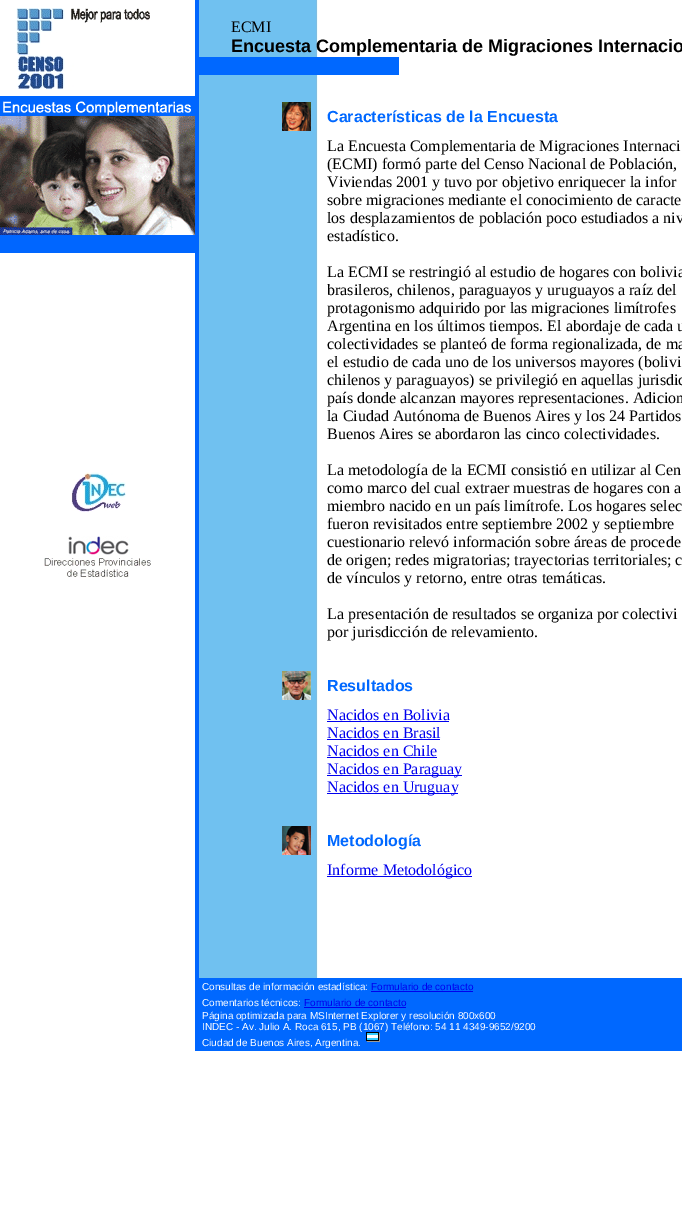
%!PS
<< /PageSize [682 1221] >> setpagedevice
/rgb { 3 { 255 div 3 1 roll } repeat setrgbcolor } def
/font { [ exch dup neg 0 0 3 -1 roll 0 0 ] selectfont } def
/picture { 5 dict begin { /h /w /y /x /name } { exch def } forall
  gsave x y translate w h scale
  w h 8 [w 0 0 h 0 0] name (r) file false 3 colorimage grestore end } def
0 1221 translate 1 -1 scale
4 setmiterlimit
255 255 255 rgb
0 0 682 1221 rectfill
(img/1.rgb) 16 8 134 82 picture
0 102 255 rgb
0 96 195 20 rectfill
(img/2.rgb) 3 101 188 15 picture
(img/3.rgb) 0 116 195 119 picture
0 235 195 18 rectfill
(img/4.rgb) 71 472 55 40 picture
(img/5.rgb) 44 536 107 42 picture
195 0 4 1051 rectfill
(img/6.rgb) 199 0 119 978 picture
0 104 255 rgb
199 57 200 18 rectfill
(img/7.rgb) 282 102 29 29 picture
(img/8.rgb) 282 671 29 29 picture
[
  [327 721 122 1 0 0 238]
  [327 739 113 1 0 0 238]
  [327 757 110 1 0 0 238]
  [327 775 135 1 0 0 238]
  [327 793 131 1 0 0 238]
] { aload pop rgb rectfill } forall
(img/9.rgb) 282 826 29 29 picture
[
  [327 876 145 1 0 0 238]
  [199 978 483 73 0 104 255]
  [371 991 102 1 0 0 238]
  [304 1007 102 1 0 0 238]
] { aload pop rgb rectfill } forall
/LiberationSerif-Regular 16 font
0 0 0 rgb
231 32 moveto (ECMI) show
/LiberationSans-Bold 18 font
231 52 moveto (Encuesta Complementaria de Migraciones Internacio) show
/LiberationSans-Bold 16 font
0 104 255 rgb
327 122 moveto (Características de la Encuesta) show
/LiberationSerif-Regular 16 font
0 0 0 rgb
[
  [(La Encuesta Complementaria de Migraciones Internaci) 327 151]
  [(\(ECMI\) formó parte del Censo Nacional de Población,) 327 169]
  [(Viviendas 2001 y tuvo por objetivo enriquecer la infor) 327 187]
  [(sobre migraciones mediante el conocimiento de caracte) 327 205]
  [(los desplazamientos de población poco estudiados a niv) 327 223]
  [(estadístico.) 327 241]
  [(La ECMI se restringió al estudio de hogares con bolivia) 327 277]
  [(brasileros, chilenos, paraguayos y uruguayos a raíz del) 327 295]
  [(protagonismo adquirido por las migraciones limítrofes) 327 313]
  [(Argentina en los últimos tiempos. El abordaje de cada u) 327 331]
  [(colectividades se planteó de forma regionalizada, de ma) 327 349]
  [(el estudio de cada uno de los universos mayores \(bolivi) 327 367]
  [(chilenos y paraguayos\) se privilegió en aquellas jurisdic) 327 385]
  [(país donde alcanzan mayores representaciones. Adicion) 327 403]
  [(la Ciudad Autónoma de Buenos Aires y los 24 Partidos) 327 421]
  [(Buenos Aires se abordaron las cinco colectividades.) 327 439]
  [(La metodología de la ECMI consistió en utilizar al Cen) 327 475]
  [(como marco del cual extraer muestras de hogares con a) 327 493]
  [(miembro nacido en un país limítrofe. Los hogares selec) 327 511]
  [(fueron revisitados entre septiembre 2002 y septiembre) 327 529]
  [(cuestionario relevó información sobre áreas de procede) 327 547]
  [(de origen; redes migratorias; trayectorias territoriales; c) 327 565]
  [(de vínculos y retorno, entre otras temáticas.) 327 583]
  [(La presentación de resultados se organiza por colectivi) 327 619]
  [(por jurisdicción de relevamiento.) 327 637]
] { aload pop moveto show } forall
/LiberationSans-Bold 16 font
0 104 255 rgb
327 691 moveto (Resultados) show
/LiberationSerif-Regular 16 font
0 0 238 rgb
[
  [(Nacidos en Bolivia) 327 720]
  [(Nacidos en Brasil) 327 738]
  [(Nacidos en Chile) 327 756]
  [(Nacidos en Paraguay) 327 774]
  [(Nacidos en Uruguay) 327 792]
] { aload pop moveto show } forall
/LiberationSans-Bold 16 font
0 104 255 rgb
327 846 moveto (Metodología) show
/LiberationSerif-Regular 16 font
0 0 238 rgb
327 875 moveto (Informe Metodológico) show
/LiberationSans-Regular 10 font
255 255 255 rgb
202 990 moveto (Consultas de información estadística:) show
0 0 238 rgb
371 990 moveto (Formulario de contacto) show
255 255 255 rgb
202 1006 moveto (Comentarios técnicos:) show
0 0 238 rgb
304 1006 moveto (Formulario de contacto) show
255 255 255 rgb
202 1019 moveto (Página optimizada para MSInternet Explorer y resolución 800x600) show
202 1030 moveto (INDEC - Av. Julio A. Roca 615, PB \(1067\) Teléfono: 54 11 4349-9652/9200) show
(img/10.rgb) 366 1032 14 10 picture
202 1046 moveto (Ciudad de Buenos Aires, Argentina.) show
showpage
